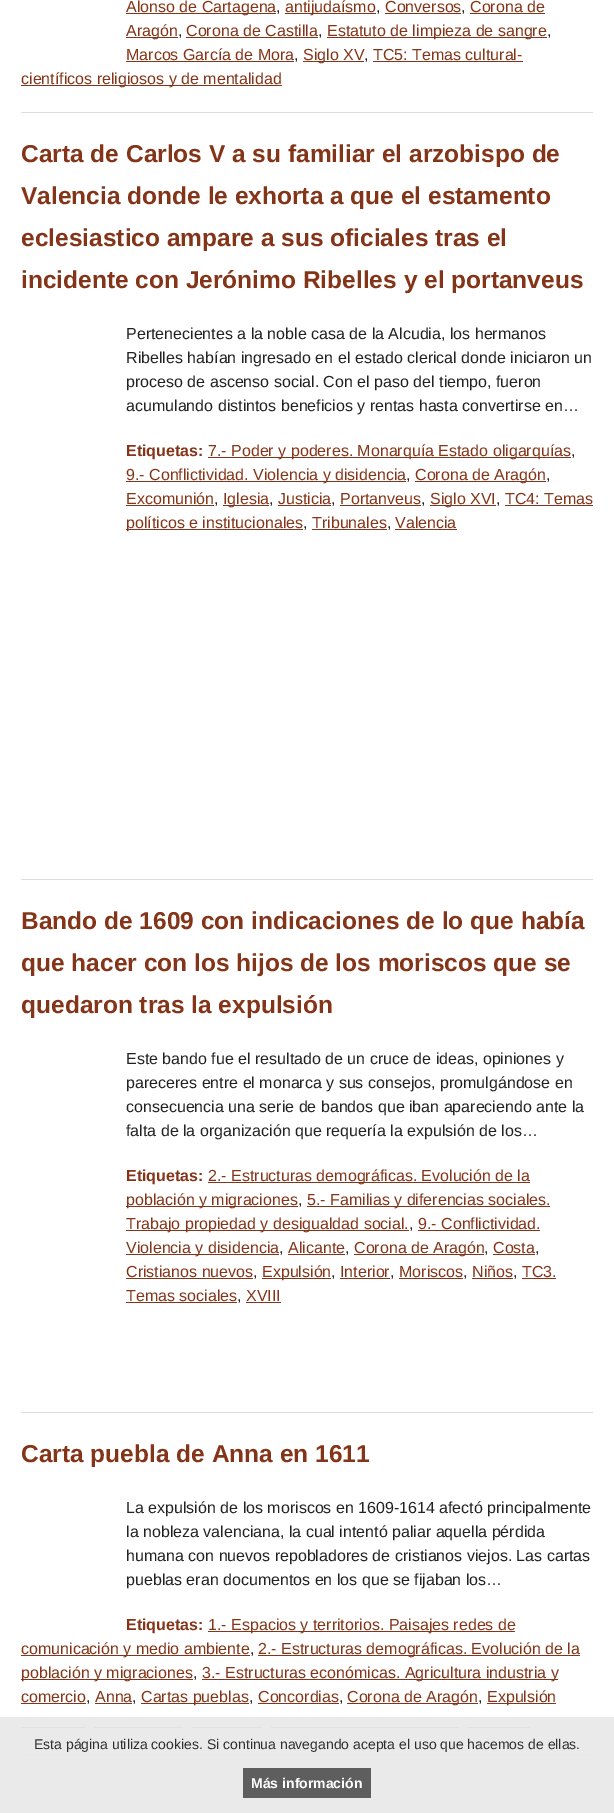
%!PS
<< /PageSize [614 1813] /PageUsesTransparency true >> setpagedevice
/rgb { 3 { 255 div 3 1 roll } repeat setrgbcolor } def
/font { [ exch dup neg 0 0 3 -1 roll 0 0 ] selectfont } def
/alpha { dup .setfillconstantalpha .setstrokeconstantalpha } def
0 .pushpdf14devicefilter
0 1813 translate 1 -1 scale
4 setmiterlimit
255 255 255 rgb
0 0 614 1813 rectfill
[
  [126 13 150 1 132 52 24]
  [285 13 91 1 132 52 24]
  [385 13 76 1 132 52 24]
  [470 13 75 1 132 52 24]
  [126 37 52 1 132 52 24]
  [186 37 132 1 132 52 24]
  [327 37 220 1 132 52 24]
  [126 61 168 1 132 52 24]
  [303 61 61 1 132 52 24]
  [373 61 150 1 132 52 24]
  [21 85 261 1 132 52 24]
  [21 112 572 1 221 221 221]
  [208 457 363 1 132 52 24]
  [126 481 280 1 132 52 24]
  [415 481 131 1 132 52 24]
  [126 505 88 1 132 52 24]
  [223 505 46 1 132 52 24]
  [278 505 53 1 132 52 24]
  [340 505 81 1 132 52 24]
  [430 505 66 1 132 52 24]
  [505 505 88 1 132 52 24]
  [126 529 177 1 132 52 24]
  [312 529 75 1 132 52 24]
  [395 529 62 1 132 52 24]
  [21 879 572 1 221 221 221]
  [208 1182 322 1 132 52 24]
  [126 1206 172 1 132 52 24]
  [307 1206 243 1 132 52 24]
  [126 1230 283 1 132 52 24]
  [418 1230 122 1 132 52 24]
  [126 1254 153 1 132 52 24]
  [288 1254 57 1 132 52 24]
  [354 1254 130 1 132 52 24]
  [493 1254 42 1 132 52 24]
  [126 1278 127 1 132 52 24]
  [262 1278 69 1 132 52 24]
  [340 1278 50 1 132 52 24]
  [399 1278 64 1 132 52 24]
  [472 1278 41 1 132 52 24]
  [522 1278 34 1 132 52 24]
  [126 1302 111 1 132 52 24]
  [246 1302 35 1 132 52 24]
  [21 1412 572 1 221 221 221]
  [208 1631 307 1 132 52 24]
  [21 1655 229 1 132 52 24]
  [258 1655 322 1 132 52 24]
  [21 1679 172 1 132 52 24]
  [202 1679 356 1 132 52 24]
  [21 1703 65 1 132 52 24]
  [95 1703 37 1 132 52 24]
  [141 1703 108 1 132 52 24]
  [258 1703 81 1 132 52 24]
  [347 1703 131 1 132 52 24]
  [487 1703 69 1 132 52 24]
  [21 1727 64 1 132 52 24]
  [94 1727 89 1 132 52 24]
  [192 1727 70 1 132 52 24]
  [271 1727 188 1 132 52 24]
  [468 1727 62 1 132 52 24]
  [21 1754 572 1 221 221 221]
] { aload pop rgb rectfill } forall
0.95 alpha
[
  [0 1717 614 96 233 233 233]
] { aload pop rgb rectfill } forall
0.6 alpha
[
  [243 1768 128 30 0 0 0]
] { aload pop rgb rectfill } forall
/LiberationSans-Regular 16 font
1 alpha
132 52 24 rgb
126 12 moveto (Alonso de Cartagena) show
34 34 34 rgb
276 12 moveto (,) show
132 52 24 rgb
285 12 moveto (antijudaísmo) show
34 34 34 rgb
376 12 moveto (,) show
132 52 24 rgb
385 12 moveto (Conversos) show
34 34 34 rgb
461 12 moveto (,) show
132 52 24 rgb
470 12 moveto (Corona de) show
126 36 moveto (Aragón) show
34 34 34 rgb
178 36 moveto (,) show
132 52 24 rgb
186 36 moveto (Corona de Castilla) show
34 34 34 rgb
318 36 moveto (,) show
132 52 24 rgb
327 36 moveto (Estatuto de limpieza de sangre) show
34 34 34 rgb
547 36 moveto (,) show
132 52 24 rgb
126 60 moveto (Marcos García de Mora) show
34 34 34 rgb
294 60 moveto (,) show
132 52 24 rgb
303 60 moveto (Siglo XV) show
34 34 34 rgb
364 60 moveto (,) show
132 52 24 rgb
373 60 moveto (TC5: Temas cultural-) show
21 84 moveto (científicos religiosos y de mentalidad) show
/LiberationSans-Bold 24.5 font
[
  [(Carta de Carlos V a su familiar el arzobispo de) 21 162]
  [(Valencia donde le exhorta a que el estamento) 21 204]
  [(eclesiastico ampare a sus oficiales tras el) 21 246]
  [(incidente con Jerónimo Ribelles y el portanveus) 21 288]
] { aload pop moveto show } forall
/LiberationSans-Regular 16 font
34 34 34 rgb
[
  [(Pertenecientes a la noble casa de la Alcudia, los hermanos) 126 339]
  [(Ribelles habían ingresado en el estado clerical donde iniciaron un) 126 363]
  [(proceso de ascenso social. Con el paso del tiempo, fueron) 126 387]
  [(acumulando distintos beneficios y rentas hasta convertirse en…) 126 411]
] { aload pop moveto show } forall
/LiberationSans-Bold 16 font
132 52 24 rgb
126 456 moveto (Etiquetas:) show
/LiberationSans-Regular 16 font
208 456 moveto (7.- Poder y poderes. Monarquía Estado oligarquías) show
34 34 34 rgb
571 456 moveto (,) show
132 52 24 rgb
126 480 moveto (9.- Conflictividad. Violencia y disidencia) show
34 34 34 rgb
406 480 moveto (,) show
132 52 24 rgb
415 480 moveto (Corona de Aragón) show
34 34 34 rgb
546 480 moveto (,) show
132 52 24 rgb
126 504 moveto (Excomunión) show
34 34 34 rgb
214 504 moveto (,) show
132 52 24 rgb
223 504 moveto (Iglesia) show
34 34 34 rgb
269 504 moveto (,) show
132 52 24 rgb
278 504 moveto (Justicia) show
34 34 34 rgb
331 504 moveto (,) show
132 52 24 rgb
340 504 moveto (Portanveus) show
34 34 34 rgb
421 504 moveto (,) show
132 52 24 rgb
430 504 moveto (Siglo XVI) show
34 34 34 rgb
496 504 moveto (,) show
132 52 24 rgb
505 504 moveto (TC4: Temas) show
126 528 moveto (políticos e institucionales) show
34 34 34 rgb
303 528 moveto (,) show
132 52 24 rgb
312 528 moveto (Tribunales) show
34 34 34 rgb
387 528 moveto (,) show
132 52 24 rgb
395 528 moveto (Valencia) show
/LiberationSans-Bold 24.5 font
[
  [(Bando de 1609 con indicaciones de lo que había) 21 929]
  [(que hacer con los hijos de los moriscos que se) 21 971]
  [(quedaron tras la expulsión) 21 1013]
] { aload pop moveto show } forall
/LiberationSans-Regular 16 font
34 34 34 rgb
[
  [(Este bando fue el resultado de un cruce de ideas, opiniones y) 126 1064]
  [(pareceres entre el monarca y sus consejos, promulgándose en) 126 1088]
  [(consecuencia una serie de bandos que iban apareciendo ante la) 126 1112]
  [(falta de la organización que requería la expulsión de los…) 126 1136]
] { aload pop moveto show } forall
/LiberationSans-Bold 16 font
132 52 24 rgb
126 1181 moveto (Etiquetas:) show
/LiberationSans-Regular 16 font
208 1181 moveto (2.- Estructuras demográficas. Evolución de la) show
126 1205 moveto (población y migraciones) show
34 34 34 rgb
298 1205 moveto (,) show
132 52 24 rgb
307 1205 moveto (5.- Familias y diferencias sociales.) show
126 1229 moveto (Trabajo propiedad y desigualdad social.) show
34 34 34 rgb
409 1229 moveto (,) show
132 52 24 rgb
418 1229 moveto (9.- Conflictividad.) show
126 1253 moveto (Violencia y disidencia) show
34 34 34 rgb
279 1253 moveto (,) show
132 52 24 rgb
288 1253 moveto (Alicante) show
34 34 34 rgb
345 1253 moveto (,) show
132 52 24 rgb
354 1253 moveto (Corona de Aragón) show
34 34 34 rgb
484 1253 moveto (,) show
132 52 24 rgb
493 1253 moveto (Costa) show
34 34 34 rgb
535 1253 moveto (,) show
132 52 24 rgb
126 1277 moveto (Cristianos nuevos) show
34 34 34 rgb
253 1277 moveto (,) show
132 52 24 rgb
262 1277 moveto (Expulsión) show
34 34 34 rgb
331 1277 moveto (,) show
132 52 24 rgb
340 1277 moveto (Interior) show
34 34 34 rgb
390 1277 moveto (,) show
132 52 24 rgb
399 1277 moveto (Moriscos) show
34 34 34 rgb
463 1277 moveto (,) show
132 52 24 rgb
472 1277 moveto (Niños) show
34 34 34 rgb
513 1277 moveto (,) show
132 52 24 rgb
[
  [(TC3.) 522 1277]
  [(Temas sociales) 126 1301]
  [(XVIII) 246 1301]
] { aload pop moveto show } forall
34 34 34 rgb
237 1301 moveto (,) show
/LiberationSans-Bold 24.5 font
132 52 24 rgb
21 1462 moveto (Carta puebla de Anna en 1611) show
/LiberationSans-Regular 16 font
34 34 34 rgb
[
  [(La expulsión de los moriscos en 1609-1614 afectó principalmente) 126 1513]
  [(la nobleza valenciana, la cual intentó paliar aquella pérdida) 126 1537]
  [(humana con nuevos repobladores de cristianos viejos. Las cartas) 126 1561]
  [(pueblas eran documentos en los que se fijaban los…) 126 1585]
] { aload pop moveto show } forall
/LiberationSans-Bold 16 font
132 52 24 rgb
126 1630 moveto (Etiquetas:) show
/LiberationSans-Regular 16 font
208 1630 moveto (1.- Espacios y territorios. Paisajes redes de) show
21 1654 moveto (comunicación y medio ambiente) show
34 34 34 rgb
250 1654 moveto (,) show
132 52 24 rgb
258 1654 moveto (2.- Estructuras demográficas. Evolución de la) show
21 1678 moveto (población y migraciones) show
34 34 34 rgb
193 1678 moveto (,) show
132 52 24 rgb
202 1678 moveto (3.- Estructuras económicas. Agricultura industria y) show
21 1702 moveto (comercio) show
34 34 34 rgb
86 1702 moveto (,) show
132 52 24 rgb
95 1702 moveto (Anna) show
34 34 34 rgb
132 1702 moveto (,) show
132 52 24 rgb
141 1702 moveto (Cartas pueblas) show
34 34 34 rgb
249 1702 moveto (,) show
132 52 24 rgb
258 1702 moveto (Concordias) show
34 34 34 rgb
339 1702 moveto (,) show
132 52 24 rgb
347 1702 moveto (Corona de Aragón) show
34 34 34 rgb
478 1702 moveto (,) show
132 52 24 rgb
487 1702 moveto (Expulsión) show
/LiberationSans-Regular 14 font
47 47 47 rgb
34 1749 moveto (Esta página utiliza cookies. Si continua navegando acepta el uso que hacemos de ellas.) show
/LiberationSans-Bold 14 font
255 255 255 rgb
251 1788 moveto (Más información) show
.poppdf14devicefilter showpage
